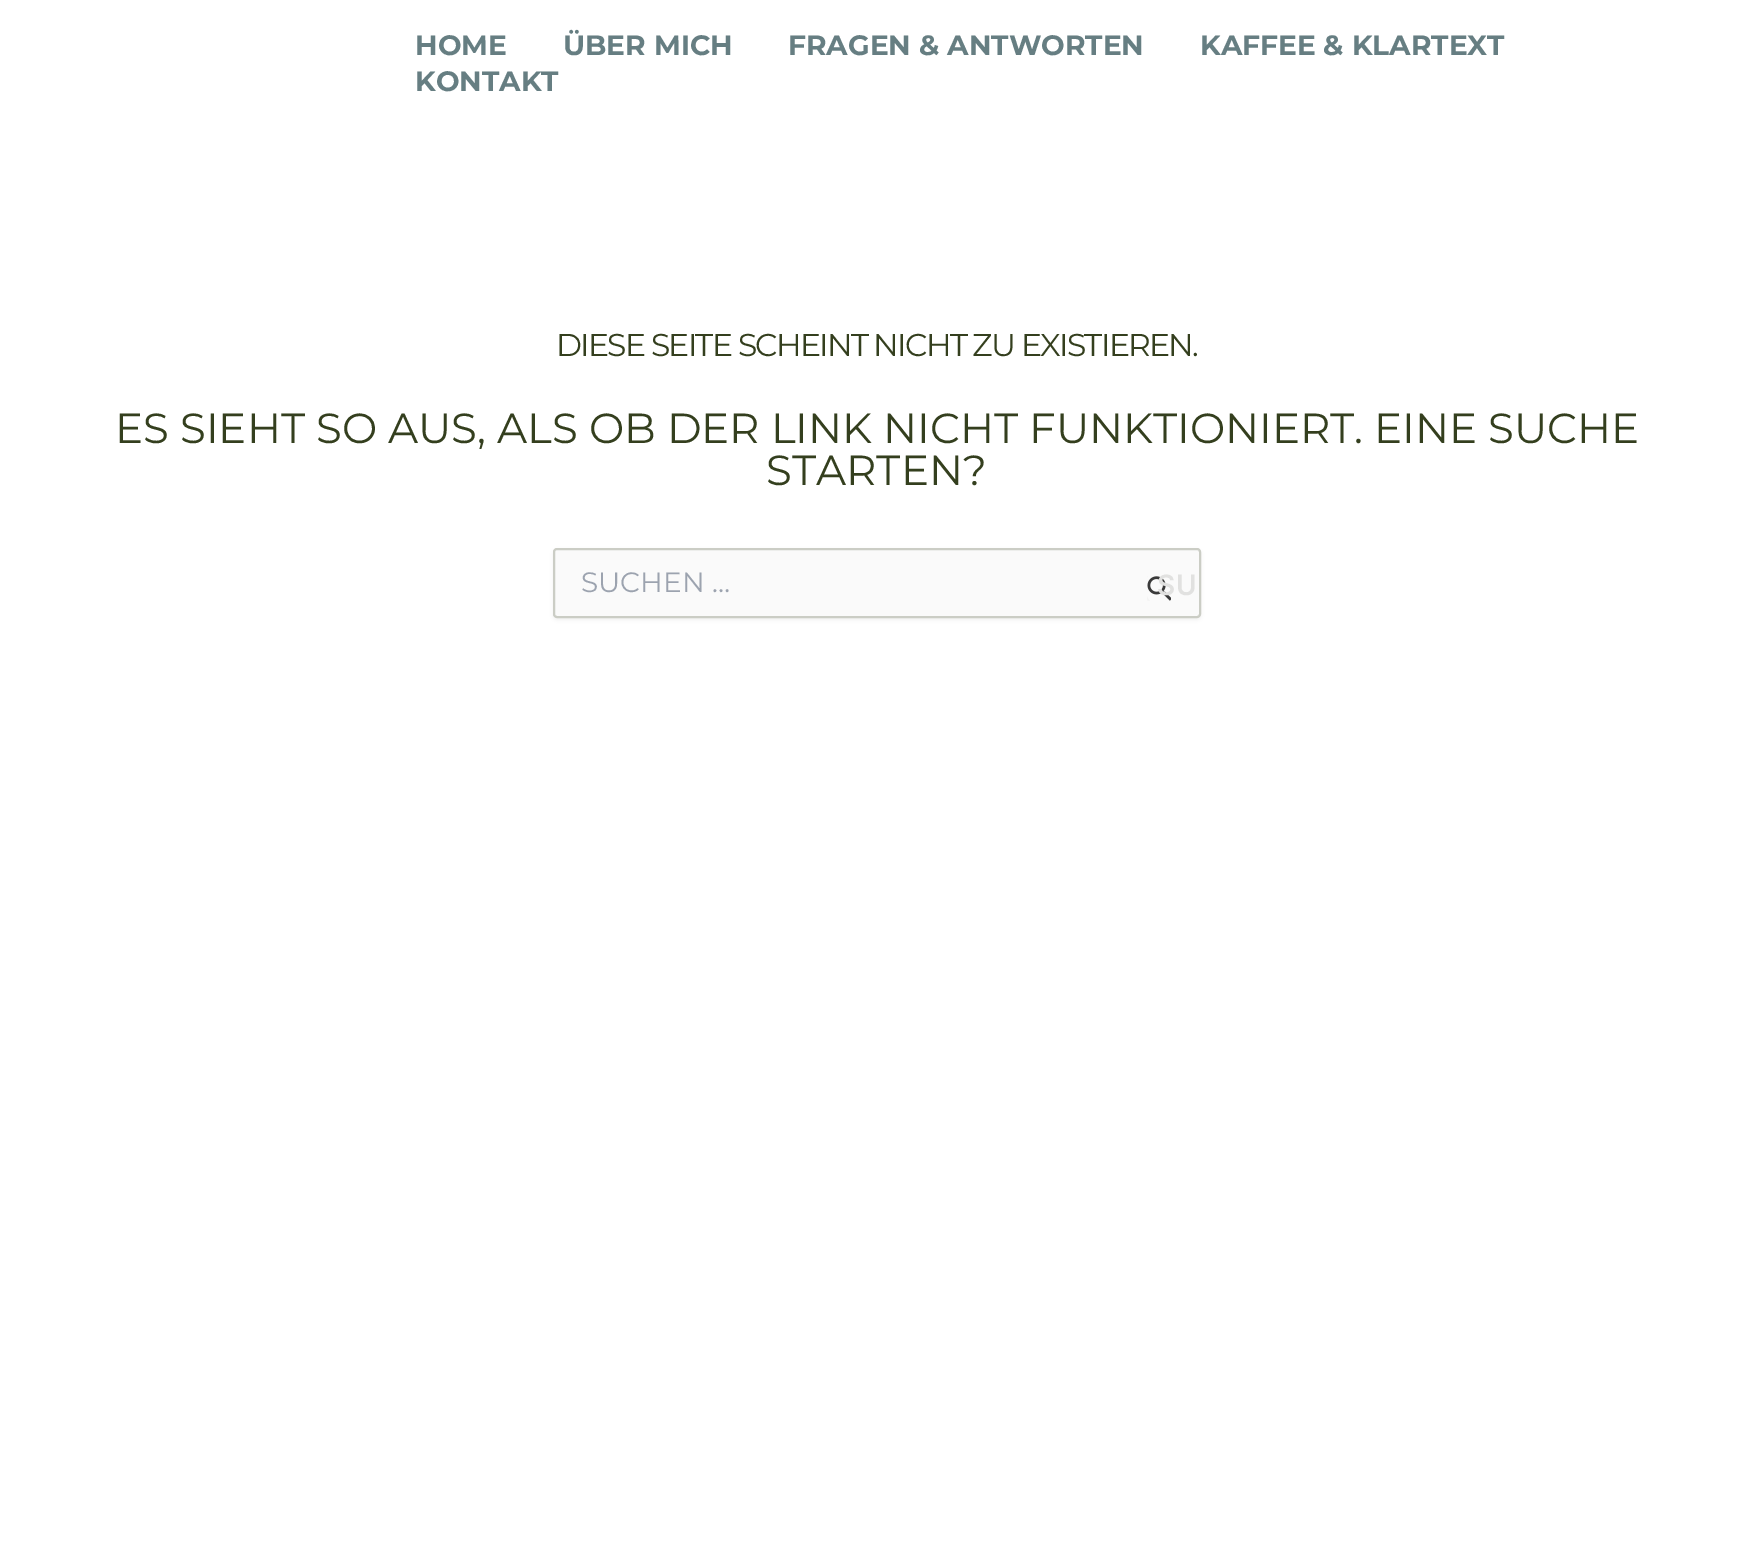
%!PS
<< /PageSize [1753 1546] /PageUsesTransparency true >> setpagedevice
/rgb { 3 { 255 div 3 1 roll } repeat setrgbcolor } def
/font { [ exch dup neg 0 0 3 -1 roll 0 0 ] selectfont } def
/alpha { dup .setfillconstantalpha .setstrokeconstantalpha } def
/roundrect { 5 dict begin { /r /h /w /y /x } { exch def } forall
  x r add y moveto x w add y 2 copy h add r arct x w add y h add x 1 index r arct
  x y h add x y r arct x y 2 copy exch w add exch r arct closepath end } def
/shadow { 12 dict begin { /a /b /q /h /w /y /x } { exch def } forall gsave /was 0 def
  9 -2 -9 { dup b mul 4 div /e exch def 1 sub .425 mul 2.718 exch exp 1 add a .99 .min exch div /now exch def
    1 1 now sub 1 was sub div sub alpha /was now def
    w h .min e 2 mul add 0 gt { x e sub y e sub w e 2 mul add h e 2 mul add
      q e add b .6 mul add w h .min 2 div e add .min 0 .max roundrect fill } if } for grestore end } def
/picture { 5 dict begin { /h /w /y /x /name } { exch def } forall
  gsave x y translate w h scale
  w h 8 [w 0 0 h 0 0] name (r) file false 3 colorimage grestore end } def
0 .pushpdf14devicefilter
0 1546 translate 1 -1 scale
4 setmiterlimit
255 255 255 rgb
0 0 1753 1546 rectfill
0 0 0 rgb
553 550 648 70 4 2 0.05 shadow
250 250 250 rgb
554 549 646 68 3 roundrect gsave fill grestore
203 205 197 rgb
2 setlinewidth
stroke
(img/1.rgb) 1147 576 24 25 picture
/Montserrat-Bold 28 font
102 126 130 rgb
[
  [(HOME) 415 55]
  [(ÜBER MICH) 563 55]
  [(FRAGEN & ANTWORTEN) 788 55]
  [(KAFFEE & KLARTEXT) 1200 55]
  [(KONTAKT) 415 91]
] { aload pop moveto show } forall
/Montserrat-Regular 31.5 font
52 63 30 rgb
556 356 moveto -1.75 0 (DIESE SEITE SCHEINT NICHT ZU EXISTIEREN.) ashow
/Montserrat-Regular 42 font
115 443 moveto (ES SIEHT SO AUS, ALS OB DER LINK NICHT FUNKTIONIERT. EINE SUCHE) show
766 485 moveto (STARTEN?) show
/Montserrat-Regular 28 font
156 163 175 rgb
581 592 moveto (SUCHEN …) show
/Inter-SemiBold 28 font
225 225 224 rgb
1157 595 moveto 1 0 (SU) ashow
.poppdf14devicefilter showpage
